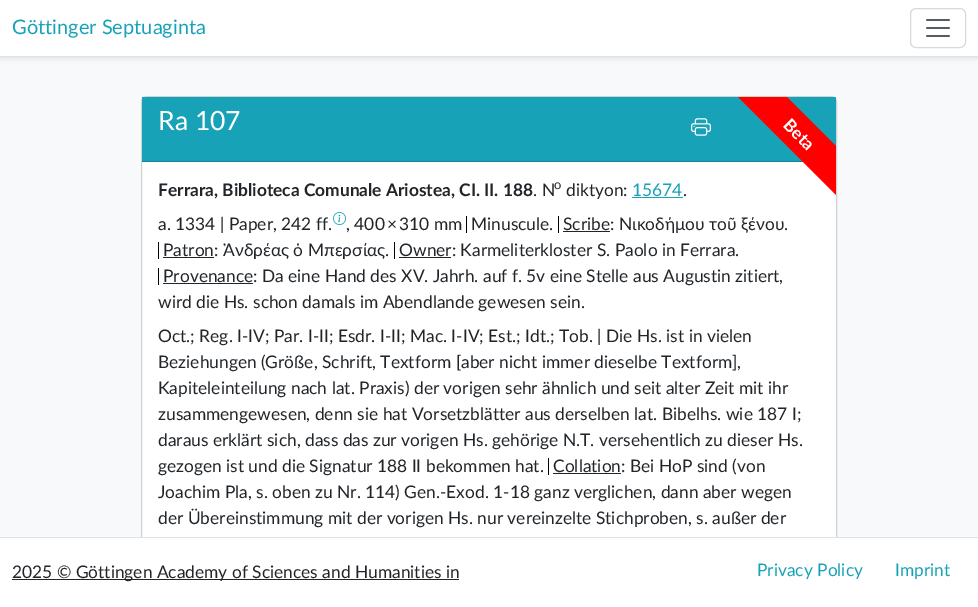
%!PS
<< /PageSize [978 607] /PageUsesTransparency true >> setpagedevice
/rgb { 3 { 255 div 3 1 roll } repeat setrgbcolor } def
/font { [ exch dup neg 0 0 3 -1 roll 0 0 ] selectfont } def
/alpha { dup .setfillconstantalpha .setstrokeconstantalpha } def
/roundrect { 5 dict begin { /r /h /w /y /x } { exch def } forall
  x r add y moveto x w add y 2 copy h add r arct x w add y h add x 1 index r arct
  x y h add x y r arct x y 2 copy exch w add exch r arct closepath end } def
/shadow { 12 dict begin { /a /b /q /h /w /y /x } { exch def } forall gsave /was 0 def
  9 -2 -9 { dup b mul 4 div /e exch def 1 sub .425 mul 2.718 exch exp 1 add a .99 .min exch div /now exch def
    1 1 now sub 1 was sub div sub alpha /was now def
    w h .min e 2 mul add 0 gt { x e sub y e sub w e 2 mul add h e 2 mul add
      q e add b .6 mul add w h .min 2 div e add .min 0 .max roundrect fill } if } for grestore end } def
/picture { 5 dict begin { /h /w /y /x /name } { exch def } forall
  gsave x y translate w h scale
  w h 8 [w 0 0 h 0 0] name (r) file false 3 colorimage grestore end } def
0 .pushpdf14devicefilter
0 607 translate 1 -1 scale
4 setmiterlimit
248 249 250 rgb
0 0 978 607 rectfill
0 0 0 rgb
0 2 978 57 0 2 0.07 shadow
255 255 255 rgb
0 0 978 56 rectfill
222 226 230 rgb
0 56 978 1 rectfill
217 217 217 rgb
910.5 8.5 55 39 5.5 roundrect stroke
(img/1.rgb) 926 19 24 18 picture
255 255 255 rgb
141.5 96.5 695 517 5.5 roundrect gsave fill grestore
210 210 210 rgb
stroke
23 162 184 rgb
142 97 694 64 rectfill
19 133 152 rgb
142 161 661 1 rectfill
(img/2.rgb) 691 118 20 18 picture
255 0 0 rgb
836 195 moveto 738 97 lineto 787 97 lineto 836 146 lineto closepath fill
23 162 184 rgb
632 197 51 1 rectfill
(img/3.rgb) 333 212 13 13 picture
[
  [466 216 1 17 0 0 0]
  [558 216 1 17 0 0 0]
  [563 231 47 1 33 37 41]
  [158 242 1 17 0 0 0]
  [163 257 51 1 33 37 41]
  [394 242 1 17 0 0 0]
  [399 257 52 1 33 37 41]
  [158 268 1 17 0 0 0]
  [163 283 90 1 33 37 41]
  [548 458 1 17 0 0 0]
  [553 473 68 1 33 37 41]
  [0 538 978 69 255 255 255]
  [0 537 978 1 222 226 230]
  [12 579 447 1 33 37 41]
] { aload pop rgb rectfill } forall
/Lato-Regular 20 font
23 162 184 rgb
12 34 moveto (Göttinger Septuaginta) show
/Lato-Regular 26.5 font
255 255 255 rgb
158 130 moveto (Ra 107) show
/Lato-Bold 17.35 font
gsave 782 126 translate 45 rotate 0 0 moveto (Beta) show grestore
33 37 41 rgb
158 196 moveto (Ferrara, Biblioteca Comunale Ariostea, CI. II. 188) show
/Lato-Regular 17.35 font
533 196 moveto (. N) show
/Lato-Regular 13 font
554 189 moveto (o) show
/Lato-Regular 17.35 font
566 196 moveto (diktyon:) show
23 162 184 rgb
632 196 moveto (15674) show
33 37 41 rgb
[
  [(.) 683 196]
  [(a. 1334 | Paper, 242 ff.) 158 230]
  [(, 400 × 310 mm) 346 230]
  [(Minuscule.) 471 230]
  [(Scribe: Νικοδήμου τοῦ ξένου.) 563 230]
  [(Patron: Ἀνδρέας ὁ Μπερσίας.) 163 256]
  [(Owner: Karmeliterkloster S. Paolo in Ferrara.) 399 256]
  [(Provenance: Da eine Hand des XV. Jahrh. auf f. 5v eine Stelle aus Augustin zitiert,) 163 282]
  [(wird die Hs. schon damals im Abendlande gewesen sein.) 158 308]
  [(Oct.; Reg. I-IV; Par. I-II; Esdr. I-II; Mac. I-IV; Est.; Idt.; Tob. | Die Hs. ist in vielen) 158 342]
  [(Beziehungen \(Größe, Schrift, Textform [aber nicht immer dieselbe Textform],) 158 368]
  [(Kapiteleinteilung nach lat. Praxis\) der vorigen sehr ähnlich und seit alter Zeit mit ihr) 158 394]
  [(zusammengewesen, denn sie hat Vorsetzblätter aus derselben lat. Bibelhs. wie 187 I;) 158 420]
  [(daraus erklärt sich, dass das zur vorigen Hs. gehörige N.T. versehentlich zu dieser Hs.) 158 446]
  [(gezogen ist und die Signatur 188 II bekommen hat.) 158 472]
  [(Collation: Bei HoP sind \(von) 553 472]
  [(Joachim Pla, s. oben zu Nr. 114\) Gen.-Exod. 1-18 ganz verglichen, dann aber wegen) 158 498]
  [(der Übereinstimmung mit der vorigen Hs. nur vereinzelte Stichproben, s. außer der) 158 524]
  [(2025 © Göttingen Academy of Sciences and Humanities in) 12 578]
] { aload pop moveto show } forall
23 162 184 rgb
757 576 moveto (Privacy Policy) show
895 576 moveto (Imprint) show
.poppdf14devicefilter showpage
